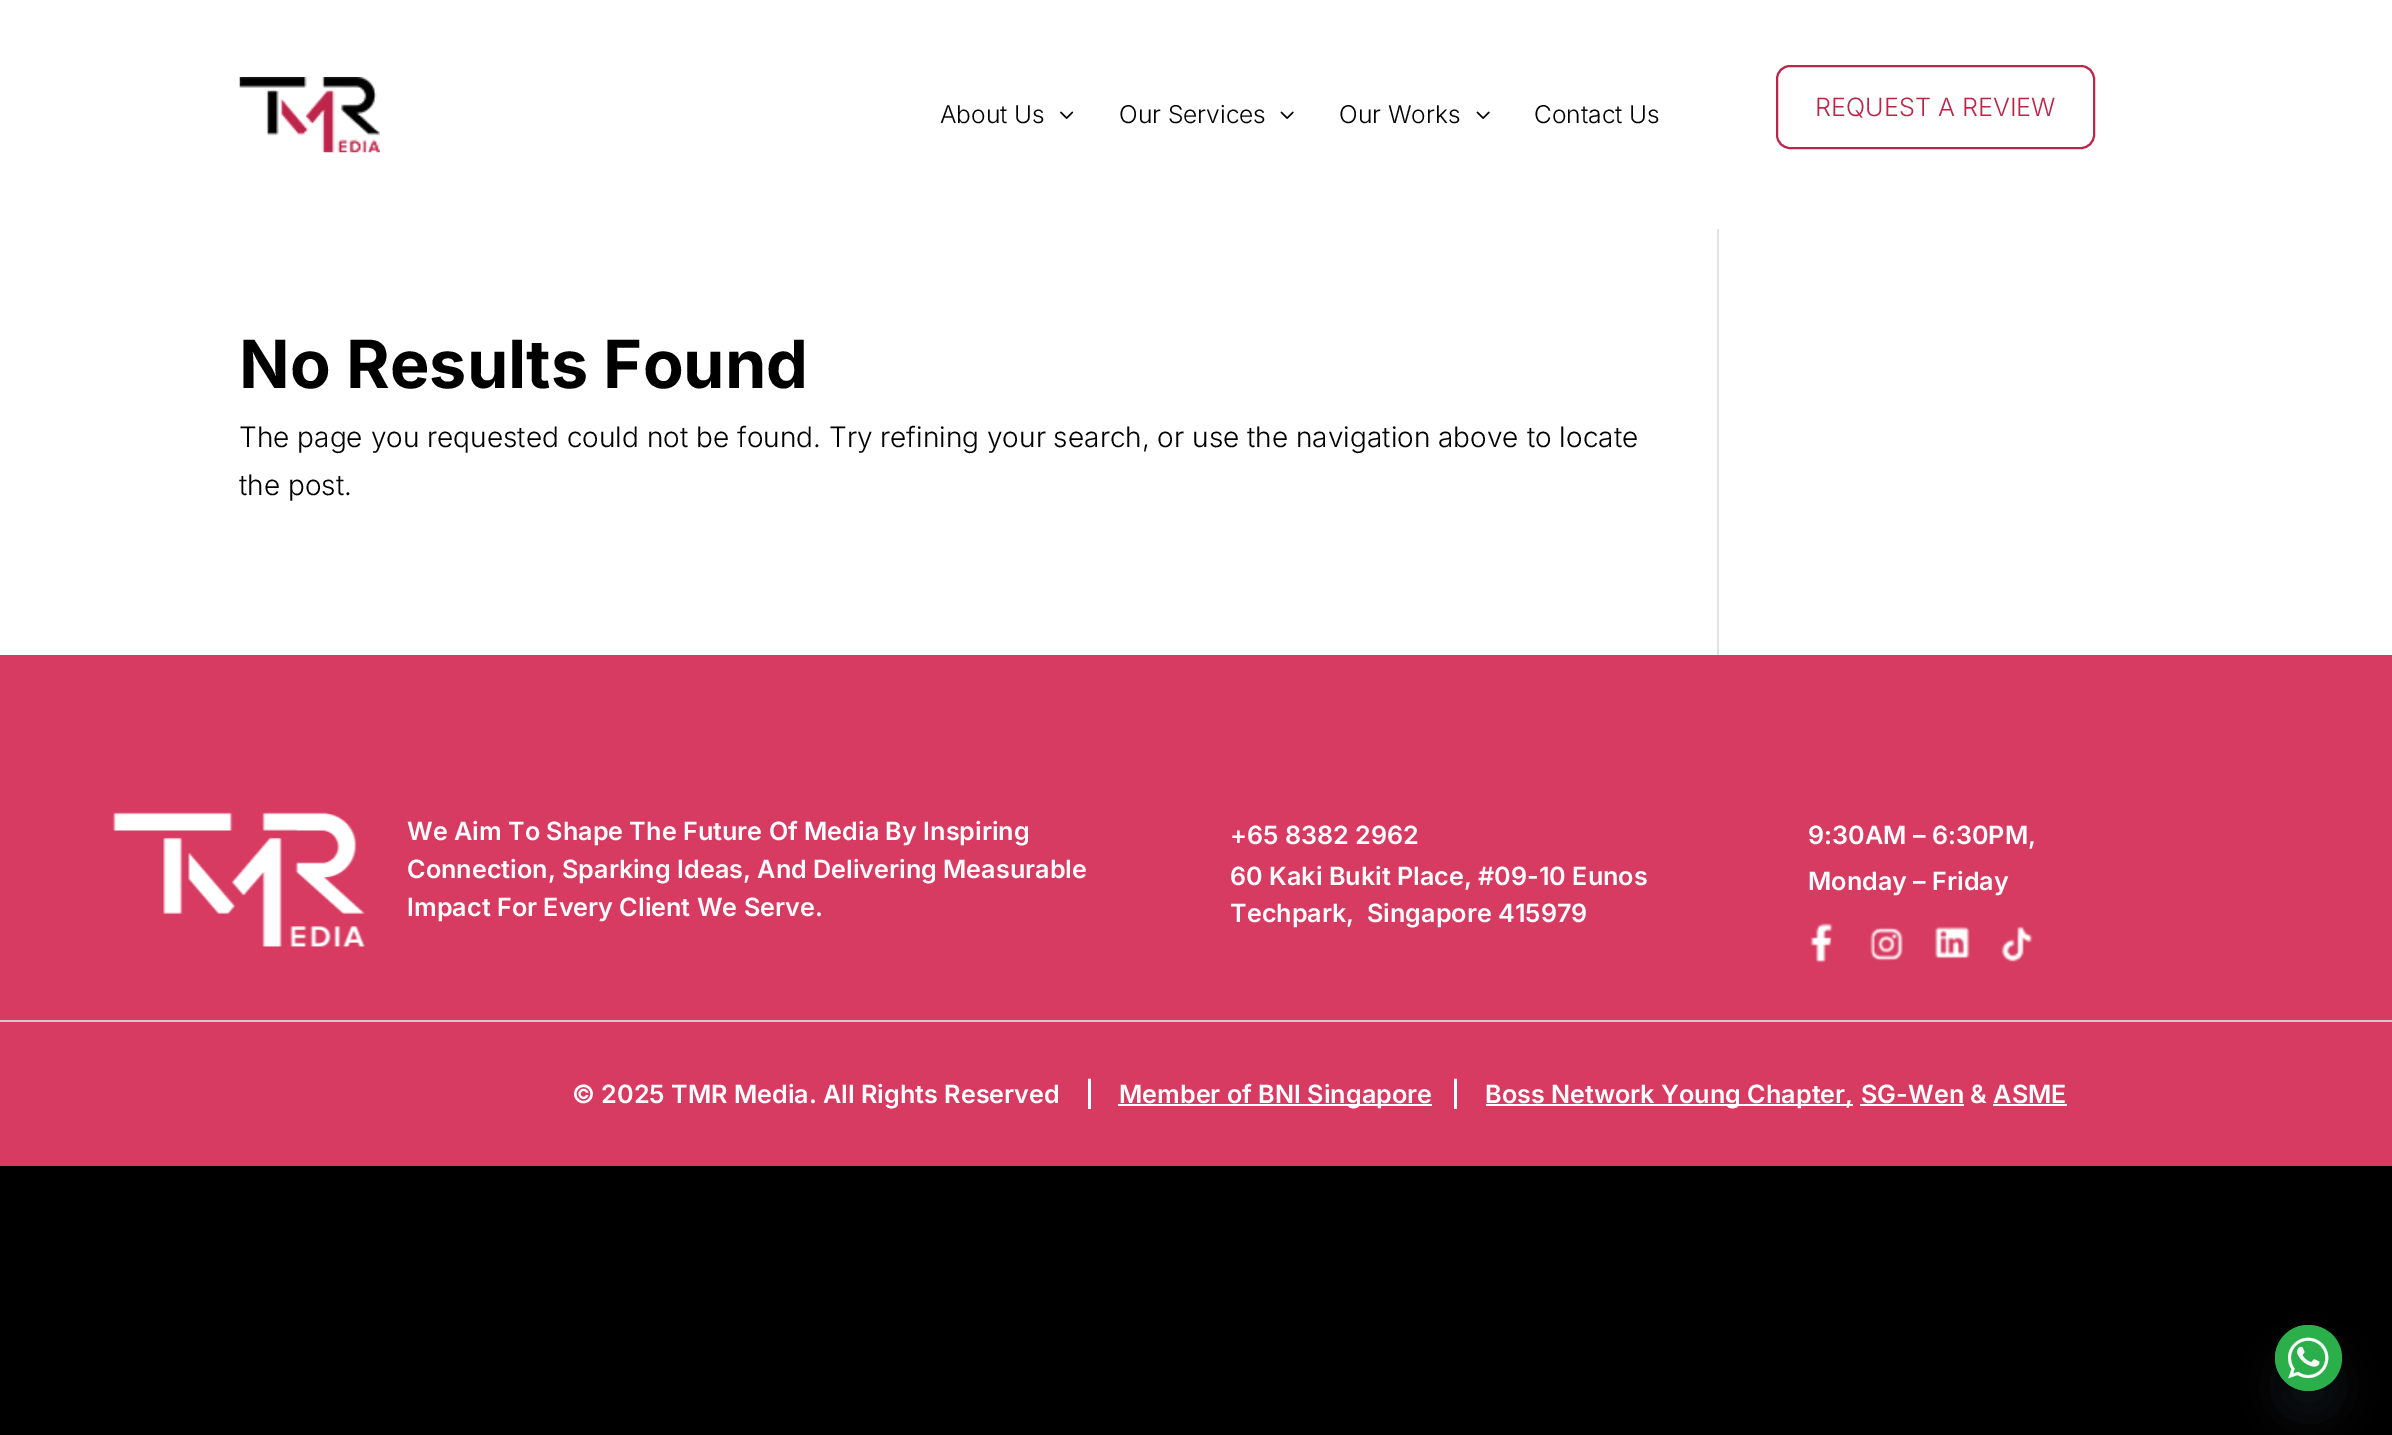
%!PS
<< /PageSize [2392 1435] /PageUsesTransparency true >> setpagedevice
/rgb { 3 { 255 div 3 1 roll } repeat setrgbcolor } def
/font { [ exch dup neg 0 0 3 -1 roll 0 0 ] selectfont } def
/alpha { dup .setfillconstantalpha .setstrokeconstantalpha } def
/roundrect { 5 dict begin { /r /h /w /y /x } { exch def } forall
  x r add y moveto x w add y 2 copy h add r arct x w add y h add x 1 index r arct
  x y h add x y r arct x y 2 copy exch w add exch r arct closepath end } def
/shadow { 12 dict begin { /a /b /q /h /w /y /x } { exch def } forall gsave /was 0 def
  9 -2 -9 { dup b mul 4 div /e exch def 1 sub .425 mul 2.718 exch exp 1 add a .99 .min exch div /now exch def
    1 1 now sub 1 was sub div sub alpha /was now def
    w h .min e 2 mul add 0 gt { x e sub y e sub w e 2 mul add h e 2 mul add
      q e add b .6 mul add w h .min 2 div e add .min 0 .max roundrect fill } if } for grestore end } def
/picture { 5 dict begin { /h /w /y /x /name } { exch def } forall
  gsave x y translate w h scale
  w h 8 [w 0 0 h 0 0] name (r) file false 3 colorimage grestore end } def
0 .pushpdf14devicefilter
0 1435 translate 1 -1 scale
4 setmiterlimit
0 0 0 rgb
0 0 2392 1435 rectfill
255 255 255 rgb
0 0 2392 655 rectfill
(img/1.rgb) 239 77 141 76 picture
(img/2.rgb) 1060 111 14 8 picture
(img/3.rgb) 1280 111 14 8 picture
(img/3.rgb) 1476 111 14 8 picture
187 37 74 rgb
2 setlinewidth
1777 66 317 82 13 roundrect stroke
[
  [1717 229 2 426 226 226 226]
  [0 655 2392 365 216 59 98]
  [0 1020 2392 2 204 204 204]
] { aload pop rgb rectfill } forall
(img/4.rgb) 112 812 253 135 picture
(img/5.rgb) 1810 923 23 40 picture
(img/6.rgb) 1870 927 33 34 picture
(img/7.rgb) 1934 926 36 33 picture
(img/8.rgb) 2001 926 32 36 picture
[
  [0 1022 2392 144 216 59 98]
  [1118 1104 314 2 255 255 255]
  [1486 1104 367 2 255 255 255]
  [1860 1104 104 2 255 255 255]
  [1993 1104 74 2 255 255 255]
] { aload pop rgb rectfill } forall
73 104 126 rgb
2275 1353 67 66 33 21 0.16 shadow
42 175 75 rgb
2275 1325 67 66 33 roundrect fill
(img/9.rgb) 2275 1325 54 66 picture
/Inter-Light 24.5 font
0 0 0 rgb
[
  [(About Us) 940 123]
  [(Our Services) 1119 123]
  [(Our Works) 1339 123]
  [(Contact Us) 1534 123]
] { aload pop moveto show } forall
/Inter-Light 25.2 font
187 37 74 rgb
1815 116 moveto (REQUEST A REVIEW) show
/Inter-Bold 66.5 font
0 0 0 rgb
239 388 moveto (No Results Found) show
/Inter-Light 28 font
239 447 moveto (The page you requested could not be found. Try refining your search, or use the navigation above to locate) show
239 495 moveto (the post.) show
/Inter-SemiBold 25.2 font
255 255 255 rgb
[
  [(We Aim To Shape The Future Of Media By Inspiring) 407 840]
  [(Connection, Sparking Ideas, And Delivering Measurable) 407 878]
  [(Impact For Every Client We Serve.) 407 916]
  [(+65 8382 2962) 1230 844]
  [(60 Kaki Bukit Place, #09-10 Eunos) 1230 885]
  [(Techpark,  Singapore 415979) 1230 922]
  [(9:30AM – 6:30PM,) 1808 844]
  [(Monday – Friday) 1808 890]
  [(© 2025 TMR Media. All Rights Reserved    |) 572 1103]
  [(Member of BNI Singapore) 1119 1103]
  [(|) 1451 1103]
  [(Boss Network Young Chapter,) 1485 1103]
  [(SG-Wen & ASME) 1861 1103]
] { aload pop moveto show } forall
.poppdf14devicefilter showpage
